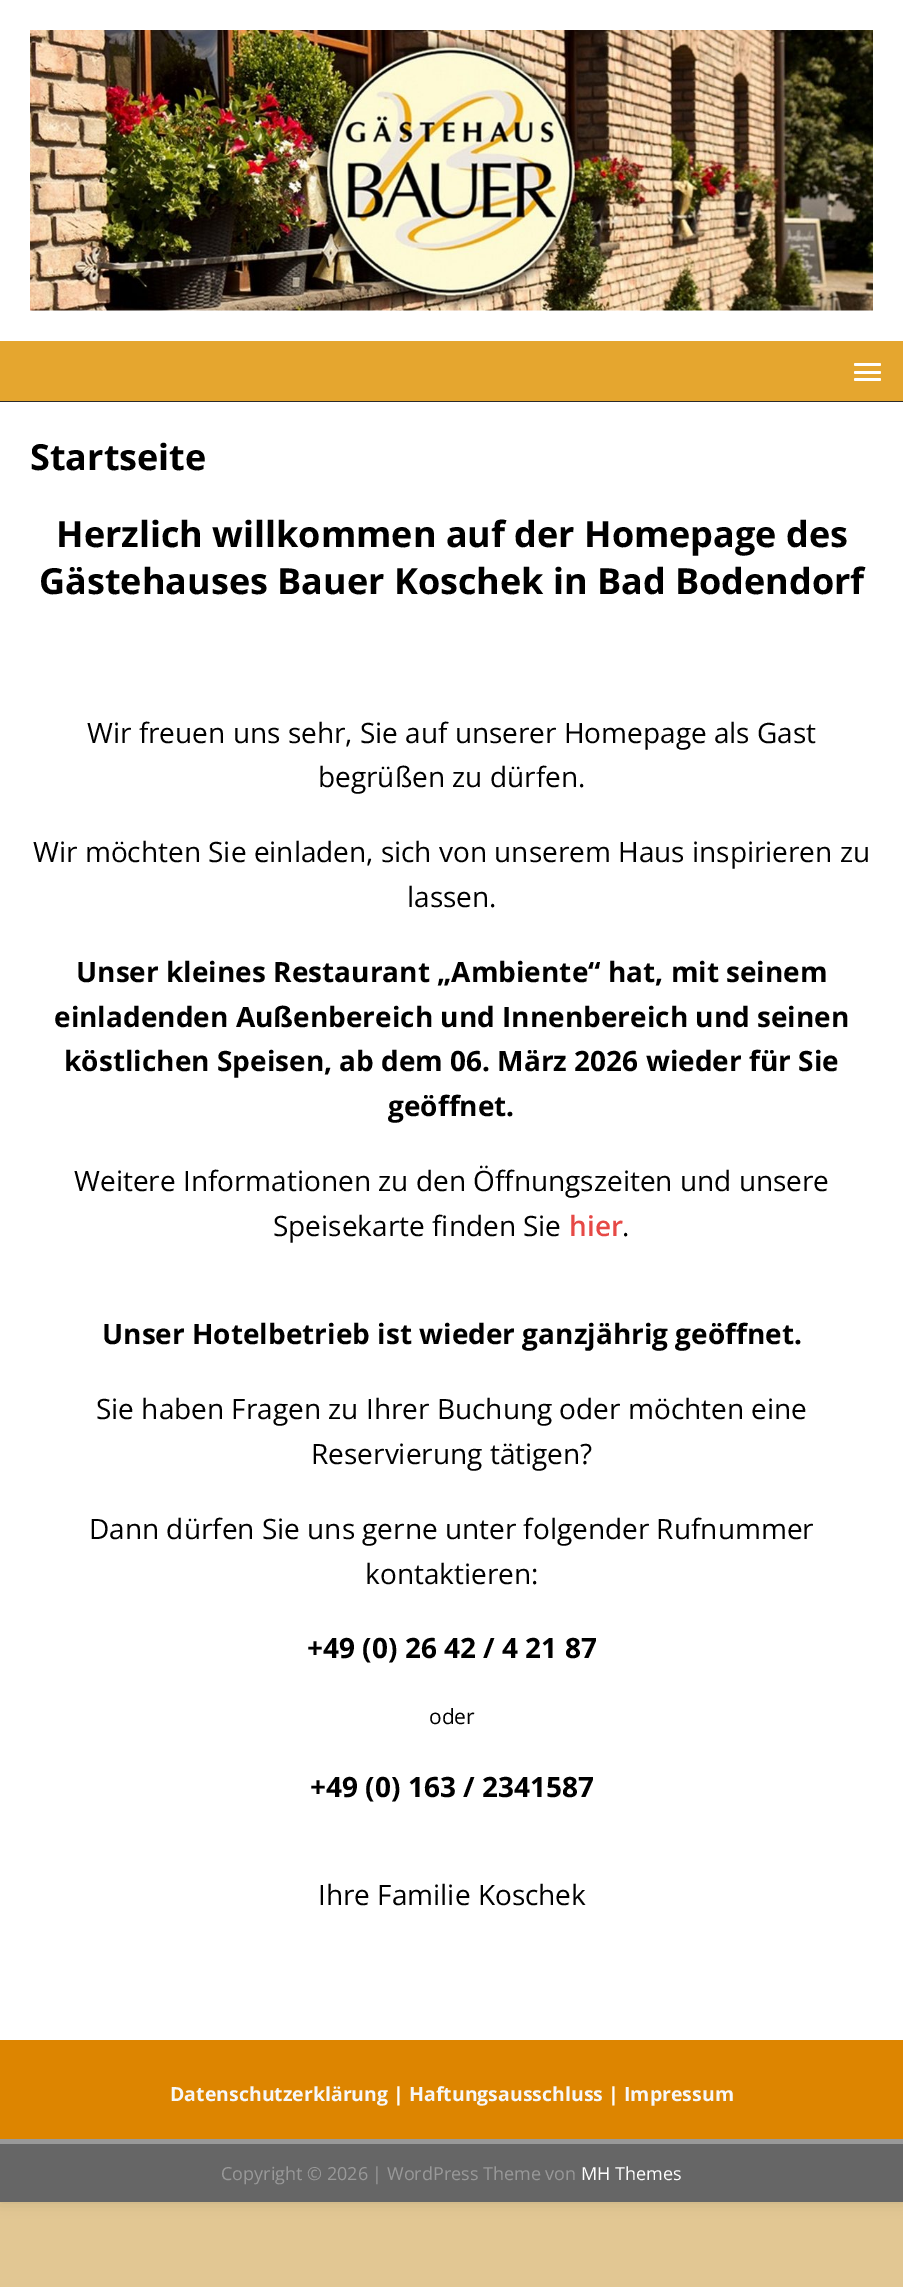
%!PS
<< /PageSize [903 2287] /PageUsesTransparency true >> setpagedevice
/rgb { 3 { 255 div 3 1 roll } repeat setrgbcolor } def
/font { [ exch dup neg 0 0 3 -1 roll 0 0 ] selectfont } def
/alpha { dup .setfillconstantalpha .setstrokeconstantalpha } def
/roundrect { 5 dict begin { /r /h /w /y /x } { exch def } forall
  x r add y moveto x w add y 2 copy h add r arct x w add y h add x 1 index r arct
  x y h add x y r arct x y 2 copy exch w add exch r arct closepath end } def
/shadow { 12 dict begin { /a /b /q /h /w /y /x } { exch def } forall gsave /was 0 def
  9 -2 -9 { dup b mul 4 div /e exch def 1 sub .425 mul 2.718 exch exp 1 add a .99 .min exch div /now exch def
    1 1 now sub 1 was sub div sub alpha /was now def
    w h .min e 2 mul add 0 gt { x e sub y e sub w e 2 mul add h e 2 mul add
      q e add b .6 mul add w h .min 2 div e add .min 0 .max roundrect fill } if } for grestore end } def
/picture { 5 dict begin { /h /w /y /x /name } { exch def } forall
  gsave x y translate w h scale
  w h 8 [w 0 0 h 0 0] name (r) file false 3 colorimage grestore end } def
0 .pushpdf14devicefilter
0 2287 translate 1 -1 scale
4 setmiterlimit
226 199 147 rgb
0 0 903 2287 rectfill
50 50 50 rgb
0 0 903 2202 0 7.5 0.17 shadow
255 255 255 rgb
0 0 903 341 rectfill
(img/1.rgb) 30 30 843 281 picture
229 166 47 rgb
0 341 903 60 rectfill
42 42 42 rgb
0 401 903 1 rectfill
255 255 255 rgb
854 363 27 3 1.5 roundrect fill
854 371 27 3 1.5 roundrect fill
854 378 27 3 1.5 roundrect fill
[
  [0 402 903 1638 255 255 255]
  [0 2040 903 99 221 133 0]
  [0 2144 903 58 102 102 102]
  [0 2139 903 5 153 153 153]
] { aload pop rgb rectfill } forall
/OpenSans-Bold 36 font
0 0 0 rgb
[
  [(Startseite) 30 470]
  [(Herzlich willkommen auf der Homepage des) 56 547]
  [(Gästehauses Bauer Koschek in Bad Bodendorf) 39 594]
] { aload pop moveto show } forall
/OpenSans-Regular 28 font
[
  [(Wir freuen uns sehr, Sie auf unserer Homepage als Gast) 87 743]
  [(begrüßen zu dürfen.) 318 787]
  [(Wir möchten Sie einladen, sich von unserem Haus inspirieren zu) 33 862]
  [(lassen.) 407 907]
] { aload pop moveto show } forall
/OpenSans-Bold 28 font
[
  [(Unser kleines Restaurant „Ambiente“ hat, mit seinem) 76 982]
  [(einladenden Außenbereich und Innenbereich und seinen) 54 1027]
  [(köstlichen Speisen, ab dem 06. März 2026 wieder für Sie) 64 1071]
  [(geöffnet.) 388 1116]
] { aload pop moveto show } forall
/OpenSans-Regular 28 font
74 1191 moveto (Weitere Informationen zu den Öffnungszeiten und unsere) show
273 1236 moveto (Speisekarte finden Sie) show
/OpenSans-SemiBold 28 font
230 73 70 rgb
569 1236 moveto (hier) show
/OpenSans-Regular 28 font
0 0 0 rgb
622 1236 moveto (.) show
/OpenSans-Bold 28 font
102 1344 moveto (Unser Hotelbetrieb ist wieder ganzjährig geöffnet.) show
/OpenSans-Regular 28 font
[
  [(Sie haben Fragen zu Ihrer Buchung oder möchten eine) 96 1419]
  [(Reservierung tätigen?) 311 1464]
  [(Dann dürfen Sie uns gerne unter folgender Rufnummer) 89 1539]
  [(kontaktieren:) 365 1584]
] { aload pop moveto show } forall
/OpenSans-Bold 28 font
307 1658 moveto (+49 \(0\) 26 42 / 4 21 87) show
/OpenSans-Regular 21 font
429 1724 moveto (oder) show
/OpenSans-Bold 28 font
310 1797 moveto (+49 \(0\) 163 / 2341587) show
/OpenSans-Regular 28 font
318 1905 moveto (Ihre Familie Koschek) show
/OpenSans-Bold 19.5 font
247 247 247 rgb
170 2101 moveto (Datenschutzerklärung) show
255 255 255 rgb
393 2101 moveto (|) show
247 247 247 rgb
409 2101 moveto (Haftungsausschluss) show
255 255 255 rgb
608 2101 moveto (|) show
247 247 247 rgb
624 2101 moveto (Impressum) show
/OpenSans-Regular 18 font
153 153 153 rgb
221 2180 moveto (Copyright © 2026 | WordPress Theme von) show
255 255 255 rgb
581 2180 moveto (MH Themes) show
.poppdf14devicefilter showpage
